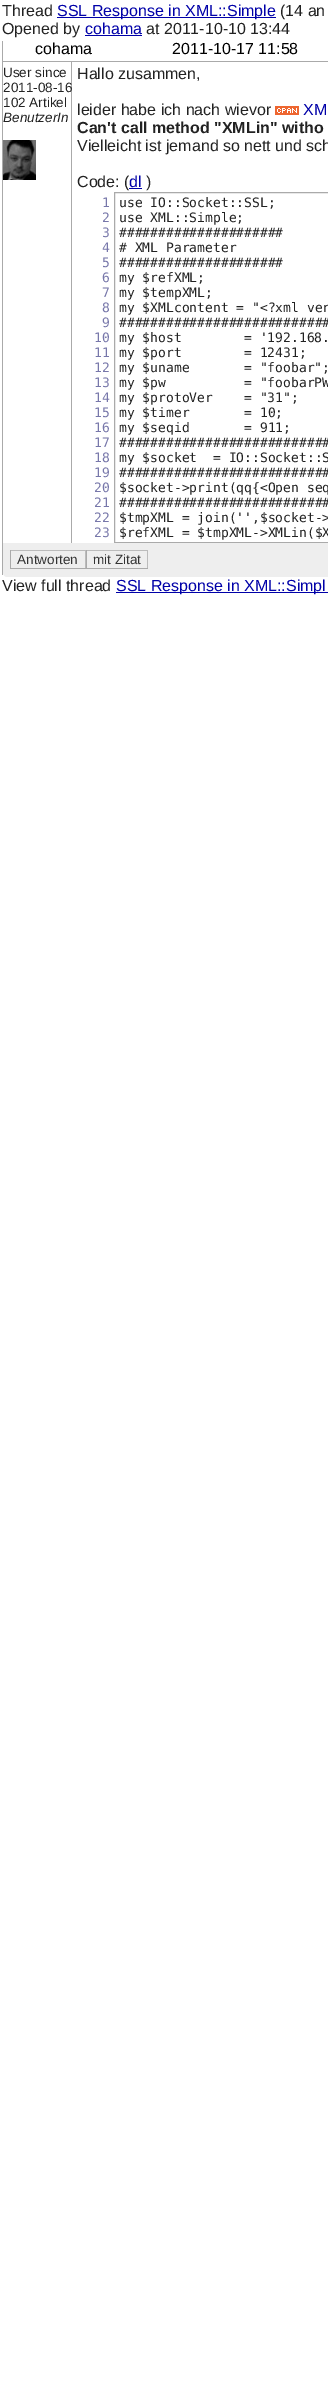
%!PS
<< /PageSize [328 2401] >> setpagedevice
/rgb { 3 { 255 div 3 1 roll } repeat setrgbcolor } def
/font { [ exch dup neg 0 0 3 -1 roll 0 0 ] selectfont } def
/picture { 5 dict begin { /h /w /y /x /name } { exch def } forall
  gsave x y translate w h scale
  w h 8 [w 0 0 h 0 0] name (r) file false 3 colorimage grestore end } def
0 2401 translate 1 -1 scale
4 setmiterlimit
255 255 255 rgb
0 0 328 2401 rectfill
[
  [57 17 219 1 0 0 168]
  [85 35 57 1 0 0 168]
  [2 41 1 534 170 170 170]
  [3 61 325 1 170 170 170]
] { aload pop rgb rectfill } forall
(img/1.rgb) 3 140 33 40 picture
71 62 1 481 rectfill
(img/2.rgb) 275 106 24 9 picture
114.5 192.5 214 350 rectstroke
238 238 238 rgb
3 543 moveto 3 572 lineto 3 575 5 577 7 577 curveto 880 577 lineto 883 577 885 575 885 572 curveto 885 543 lineto closepath fill
[
  [10 550 138 1 187 187 187]
  [85 550 1 19 187 187 187]
  [10 568 76 1 170 170 170]
  [10 550 1 19 170 170 170]
  [147 550 1 19 187 187 187]
  [86 568 62 1 170 170 170]
  [86 550 1 19 170 170 170]
  [116 592 212 1 0 0 168]
] { aload pop rgb rectfill } forall
/LiberationSans-Regular 16 font
34 34 34 rgb
2 16 moveto (Thread) show
0 0 168 rgb
57 16 moveto (SSL Response in XML::Simple) show
34 34 34 rgb
280 16 moveto (\(14 an) show
2 34 moveto (Opened by) show
0 0 168 rgb
85 34 moveto (cohama) show
34 34 34 rgb
146 34 moveto (at 2011-10-10 13:44) show
0 0 0 rgb
35 54 moveto (cohama) show
172 54 moveto (2011-10-17 11:58) show
/LiberationSans-Regular 13.5 font
34 34 34 rgb
[
  [(User since) 3 77]
  [(2011-08-16) 3 92]
  [(102 Artikel) 3 107]
] { aload pop moveto show } forall
/LiberationSans-Italic 13.5 font
3 122 moveto (BenutzerIn) show
/LiberationSans-Regular 16 font
77 79 moveto (Hallo zusammen,) show
77 115 moveto (leider habe ich nach wievor) show
0 0 168 rgb
303 115 moveto (XM) show
/LiberationSans-Bold 16 font
34 34 34 rgb
77 133 moveto (Can't call method "XMLin" witho) show
/LiberationSans-Regular 16 font
77 151 moveto (Vielleicht ist jemand so nett und sch) show
77 187 moveto (Code: \() show
0 0 168 rgb
129 187 moveto (dl) show
129 188 13 1 rectfill
34 34 34 rgb
146 187 moveto (\)) show
/DejaVuSansMono-Regular 13 font
119 119 170 rgb
[
  [(1) 102 207]
  [(2) 102 222]
  [(3) 102 237]
  [(4) 102 252]
  [(5) 102 267]
  [(6) 102 282]
  [(7) 102 297]
  [(8) 102 312]
  [(9) 102 327]
  [(10) 94 342]
  [(11) 94 357]
  [(12) 94 372]
  [(13) 94 387]
  [(14) 94 402]
  [(15) 94 417]
  [(16) 94 432]
  [(17) 94 447]
  [(18) 94 462]
  [(19) 94 477]
  [(20) 94 492]
  [(21) 94 507]
  [(22) 94 522]
  [(23) 94 537]
] { aload pop moveto show } forall
34 34 34 rgb
[
  [(use IO::Socket::SSL;) 119 207]
  [(use XML::Simple;) 119 222]
  [(#####################) 119 237]
  [(# XML Parameter) 119 252]
  [(#####################) 119 267]
  [(my $refXML;) 119 282]
  [(my $tempXML;) 119 297]
  [(my $XMLcontent = "<?xml ver) 119 312]
  [(###########################) 119 327]
  [(my $host) 119 342]
  [(= '192.168.) 244 342]
  [(my $port) 119 357]
  [(= 12431;) 244 357]
  [(my $uname) 119 372]
  [(= "foobar";) 244 372]
  [(my $pw) 119 387]
  [(= "foobarPW) 244 387]
  [(my $protoVer) 119 402]
  [(= "31";) 244 402]
  [(my $timer       = 10;) 119 417]
  [(my $seqid       = 911;) 119 432]
  [(###########################) 119 447]
  [(my $socket  = IO::Socket::S) 119 462]
  [(###########################) 119 477]
  [($socket->print\(qq{<Open seq) 119 492]
  [(###########################) 119 507]
  [($tmpXML = join\('',$socket->) 119 522]
  [($refXML = $tmpXML->XMLin\($X) 119 537]
] { aload pop moveto show } forall
/LiberationSans-Regular 13.5 font
51 51 51 rgb
17 564 moveto (Antworten) show
93 564 moveto (mit Zitat) show
/LiberationSans-Regular 16 font
34 34 34 rgb
2 591 moveto (View full thread) show
0 0 168 rgb
116 591 moveto (SSL Response in XML::Simpl) show
showpage
